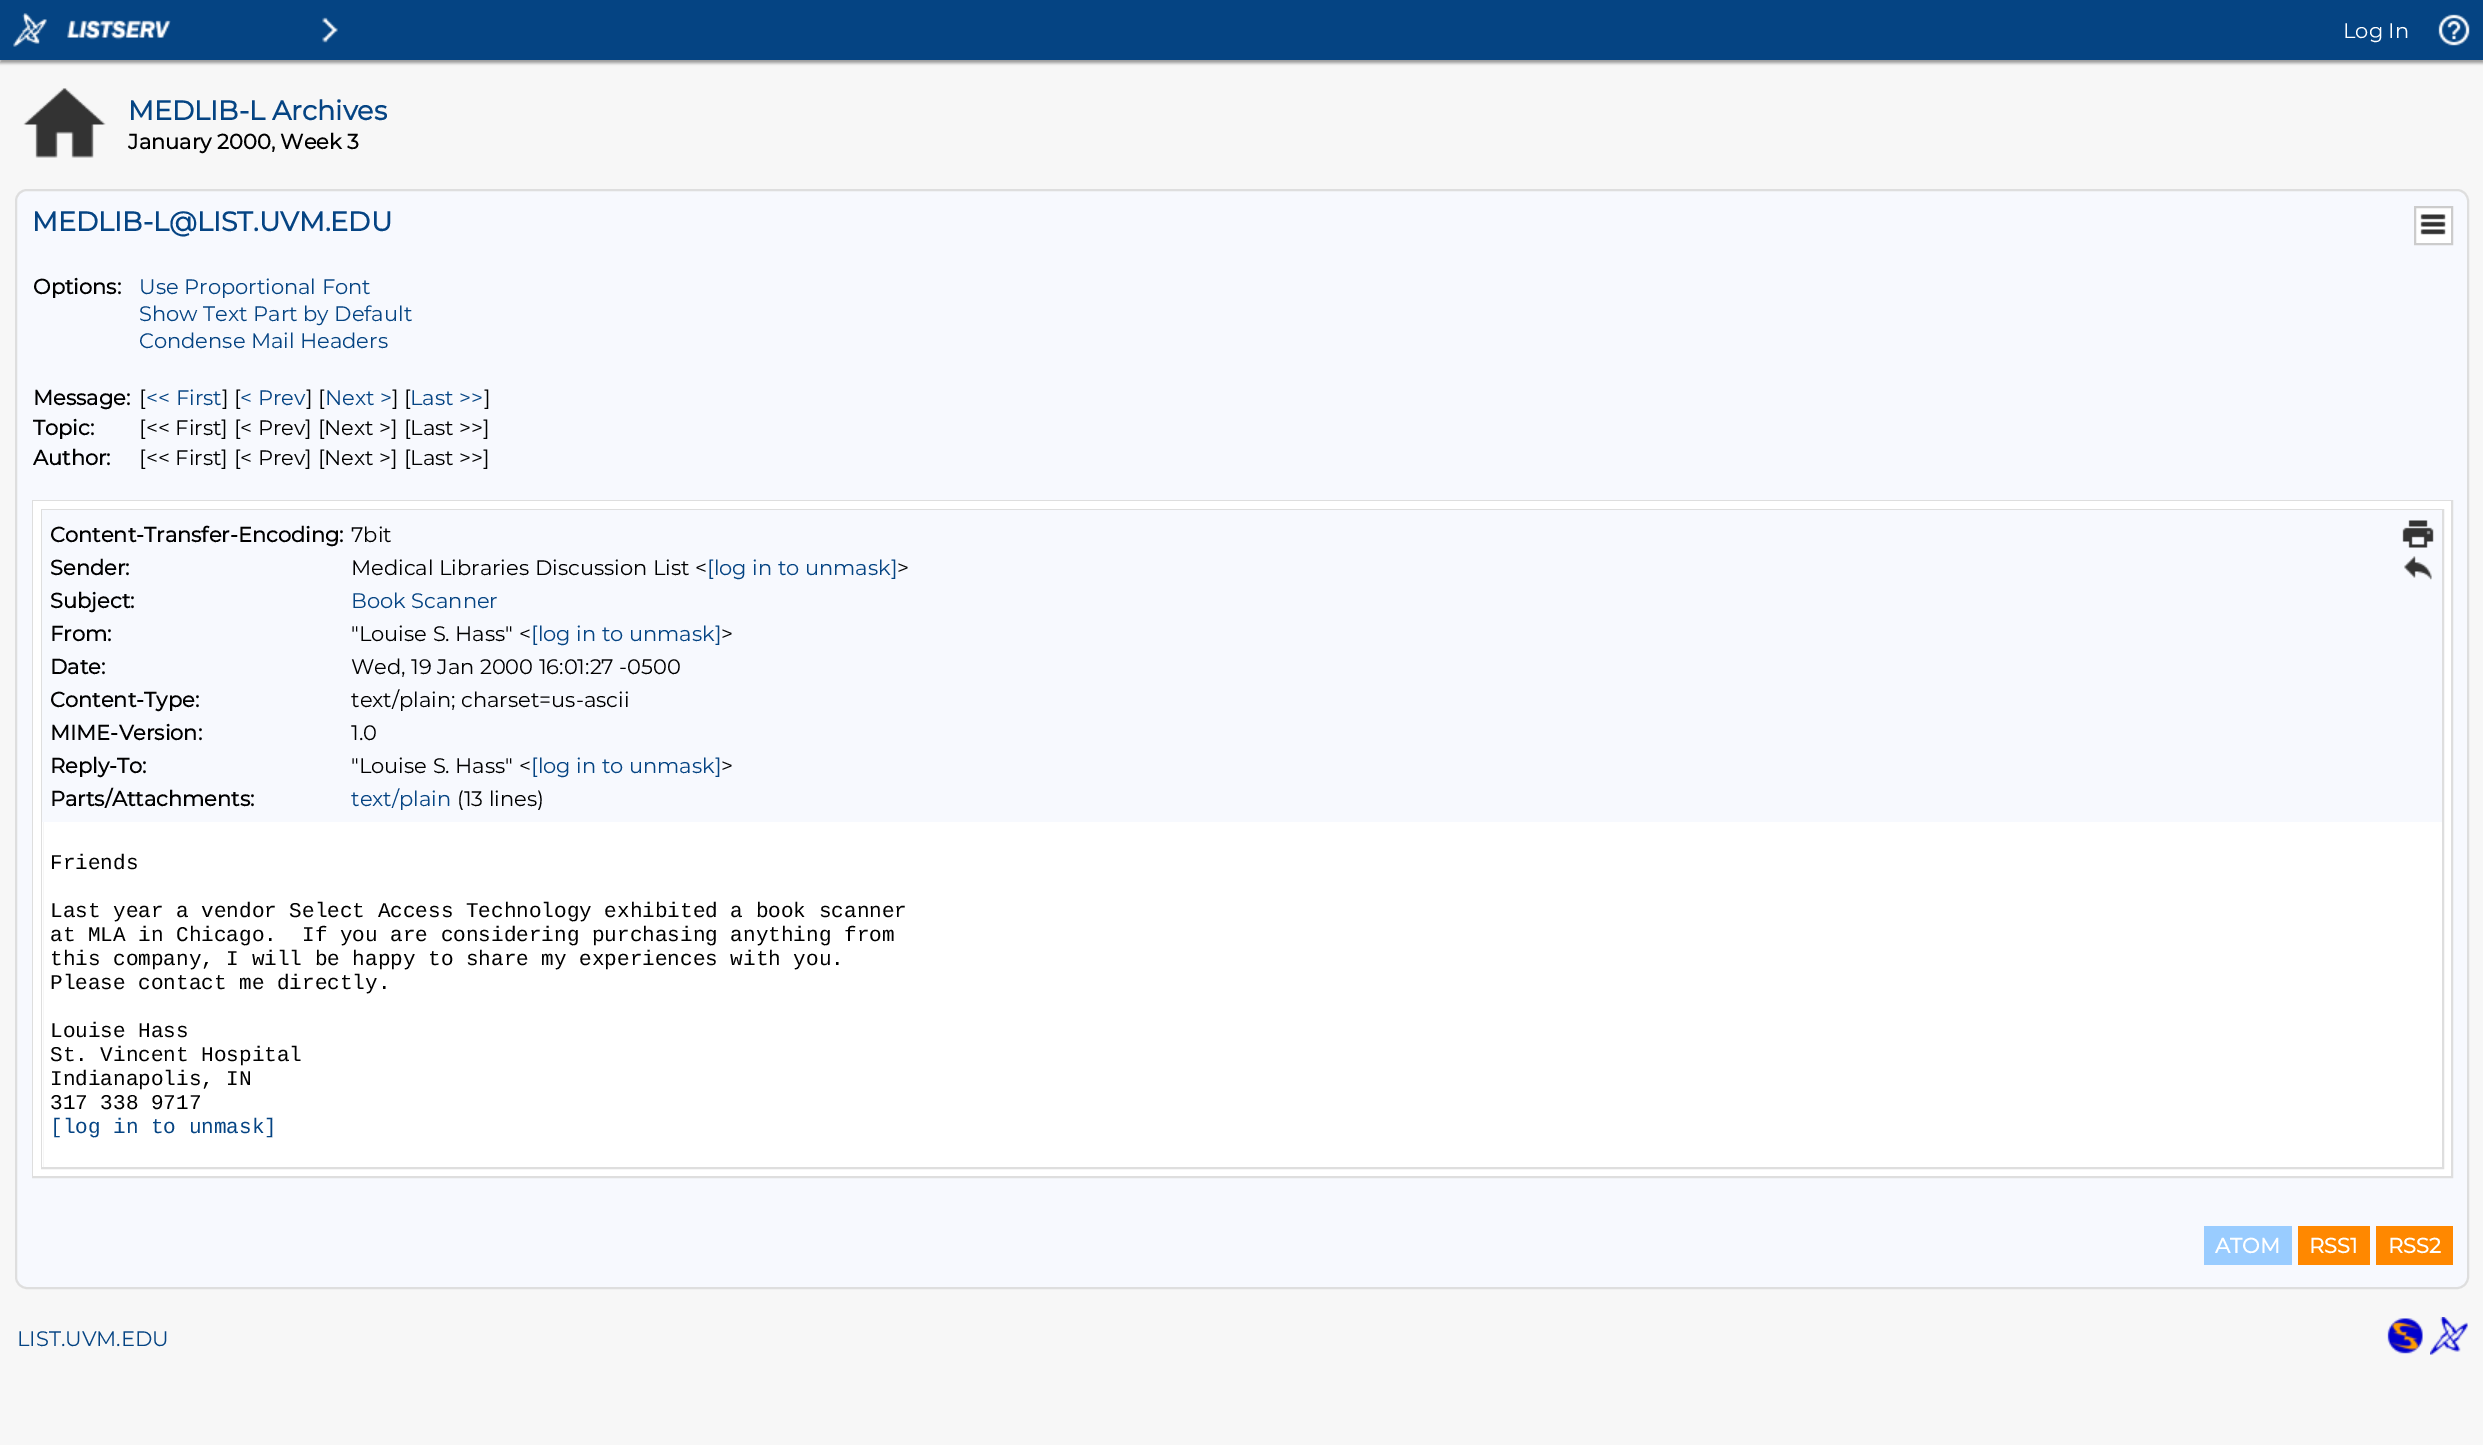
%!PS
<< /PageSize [2483 1445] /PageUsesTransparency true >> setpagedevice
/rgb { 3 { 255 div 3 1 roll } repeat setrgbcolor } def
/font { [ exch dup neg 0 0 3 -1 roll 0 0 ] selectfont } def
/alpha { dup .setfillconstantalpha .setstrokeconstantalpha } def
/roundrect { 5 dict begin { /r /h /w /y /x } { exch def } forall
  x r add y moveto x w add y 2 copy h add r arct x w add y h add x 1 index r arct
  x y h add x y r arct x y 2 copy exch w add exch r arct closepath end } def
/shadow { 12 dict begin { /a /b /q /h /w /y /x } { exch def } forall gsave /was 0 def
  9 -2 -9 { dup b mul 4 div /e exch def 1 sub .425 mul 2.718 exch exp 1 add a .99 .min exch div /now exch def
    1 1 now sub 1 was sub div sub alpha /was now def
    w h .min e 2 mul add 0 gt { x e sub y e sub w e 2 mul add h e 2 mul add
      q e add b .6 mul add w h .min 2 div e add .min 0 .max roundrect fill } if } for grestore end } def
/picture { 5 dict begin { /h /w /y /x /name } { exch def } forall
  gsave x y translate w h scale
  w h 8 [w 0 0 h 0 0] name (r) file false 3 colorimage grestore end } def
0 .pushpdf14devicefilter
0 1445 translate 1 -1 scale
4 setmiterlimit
247 247 247 rgb
0 0 2483 1445 rectfill
153 153 153 rgb
0 3 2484 60 0 1.5 1 shadow
5 68 131 rgb
0 0 2483 60 rectfill
(img/1.rgb) 13 13 34 34 picture
(img/2.rgb) 67 20 104 20 picture
(img/3.rgb) 322 17 16 26 picture
(img/4.rgb) 2438 14 32 32 picture
(img/5.rgb) 23 88 83 70 picture
247 249 254 rgb
16 190 2452 1098 11 roundrect gsave fill grestore
222 222 222 rgb
2 setlinewidth
stroke
255 255 255 rgb
2415 207 moveto 2452 207 lineto 2452 244 lineto 2415 244 lineto closepath gsave fill grestore
204 204 204 rgb
stroke
(img/6.rgb) 2420 214 26 21 picture
222 222 222 rgb
33 501 2419 676 rectstroke
255 255 255 rgb
33 501 2418 675 rectfill
222 222 222 rgb
42 510 2401 658 rectstroke
247 249 254 rgb
42 510 2400 312 rectfill
(img/7.rgb) 2402 520 32 28 picture
(img/8.rgb) 2404 556 28 24 picture
[
  [42 822 1 345 255 255 255]
  [2204 1226 88 39 153 204 255]
  [2298 1226 72 39 255 136 0]
  [2376 1226 77 39 255 136 0]
] { aload pop rgb rectfill } forall
(img/9.rgb) 2387 1318 36 36 picture
(img/10.rgb) 2430 1317 38 38 picture
/Montserrat-Thin 21 font
255 255 255 rgb
2343 38 moveto (Log In) show
/Montserrat-Bold 27 font
5 68 131 rgb
128 120 moveto (MEDLIB-L Archives) show
/Montserrat-Bold 21 font
0 0 0 rgb
128 149 moveto (January 2000, Week 3) show
/Montserrat-Bold 27 font
5 68 131 rgb
32 231 moveto (MEDLIB-L@LIST.UVM.EDU) show
/Montserrat-Bold 21 font
0 0 0 rgb
33 294 moveto (Options:) show
/Montserrat-Thin 21 font
5 68 131 rgb
[
  [(Use Proportional Font) 139 294]
  [(Show Text Part by Default) 139 321]
  [(Condense Mail Headers) 139 348]
] { aload pop moveto show } forall
/Montserrat-Bold 21 font
0 0 0 rgb
33 405 moveto (Message:) show
/Montserrat-Thin 21 font
139 405 moveto ([) show
5 68 131 rgb
146 405 moveto (<< First) show
0 0 0 rgb
222 405 moveto (] [) show
5 68 131 rgb
240 405 moveto (< Prev) show
0 0 0 rgb
306 405 moveto (] [) show
5 68 131 rgb
325 405 moveto (Next >) show
0 0 0 rgb
392 405 moveto (] [) show
5 68 131 rgb
410 405 moveto (Last >>) show
0 0 0 rgb
484 405 moveto (]) show
/Montserrat-Bold 21 font
33 435 moveto (Topic:) show
/Montserrat-Thin 21 font
139 435 moveto ([<< First] [< Prev] [Next >] [Last >>]) show
/Montserrat-Bold 21 font
33 465 moveto (Author:) show
/Montserrat-Thin 21 font
139 465 moveto ([<< First] [< Prev] [Next >] [Last >>]) show
/Montserrat-Bold 21 font
50 542 moveto (Content-Transfer-Encoding:) show
/Montserrat-Thin 21 font
351 542 moveto (7bit) show
/Montserrat-Bold 21 font
50 575 moveto (Sender:) show
/Montserrat-Thin 21 font
351 575 moveto (Medical Libraries Discussion List <) show
5 68 131 rgb
707 575 moveto ([log in to unmask]) show
0 0 0 rgb
897 575 moveto (>) show
/Montserrat-Bold 21 font
50 608 moveto (Subject:) show
/Montserrat-Thin 21 font
5 68 131 rgb
351 608 moveto (Book Scanner) show
/Montserrat-Bold 21 font
0 0 0 rgb
50 641 moveto (From:) show
/Montserrat-Thin 21 font
351 641 moveto ("Louise S. Hass" <) show
5 68 131 rgb
531 641 moveto ([log in to unmask]) show
0 0 0 rgb
721 641 moveto (>) show
/Montserrat-Bold 21 font
50 674 moveto (Date:) show
/Montserrat-Thin 21 font
351 674 moveto (Wed, 19 Jan 2000 16:01:27 -0500) show
/Montserrat-Bold 21 font
50 707 moveto (Content-Type:) show
/Montserrat-Thin 21 font
351 707 moveto (text/plain; charset=us-ascii) show
/Montserrat-Bold 21 font
50 740 moveto (MIME-Version:) show
/Montserrat-Thin 21 font
351 740 moveto (1.0) show
/Montserrat-Bold 21 font
50 773 moveto (Reply-To:) show
/Montserrat-Thin 21 font
351 773 moveto ("Louise S. Hass" <) show
5 68 131 rgb
531 773 moveto ([log in to unmask]) show
0 0 0 rgb
721 773 moveto (>) show
/Montserrat-Bold 21 font
50 806 moveto (Parts/Attachments:) show
/Montserrat-Thin 21 font
5 68 131 rgb
351 806 moveto (text/plain) show
0 0 0 rgb
457 806 moveto (\(13 lines\)) show
/LiberationMono-Regular 21 font
[
  [(Friends) 50 869]
  [(Last year a vendor Select Access Technology exhibited a book scanner) 50 917]
  [(at MLA in Chicago.  If you are considering purchasing anything from) 50 941]
  [(this company, I will be happy to share my experiences with you.) 50 965]
  [(Please contact me directly.) 50 989]
  [(Louise Hass) 50 1037]
  [(St. Vincent Hospital) 50 1061]
  [(Indianapolis, IN) 50 1085]
  [(317 338 9717) 50 1109]
] { aload pop moveto show } forall
5 68 131 rgb
50 1133 moveto ([log in to unmask]) show
/Montserrat-Bold 21 font
255 255 255 rgb
[
  [(ATOM) 2215 1253]
  [(RSS1) 2309 1253]
  [(RSS2) 2388 1253]
] { aload pop moveto show } forall
/Montserrat-Thin 21 font
5 68 131 rgb
17 1346 moveto (LIST.UVM.EDU) show
.poppdf14devicefilter showpage
